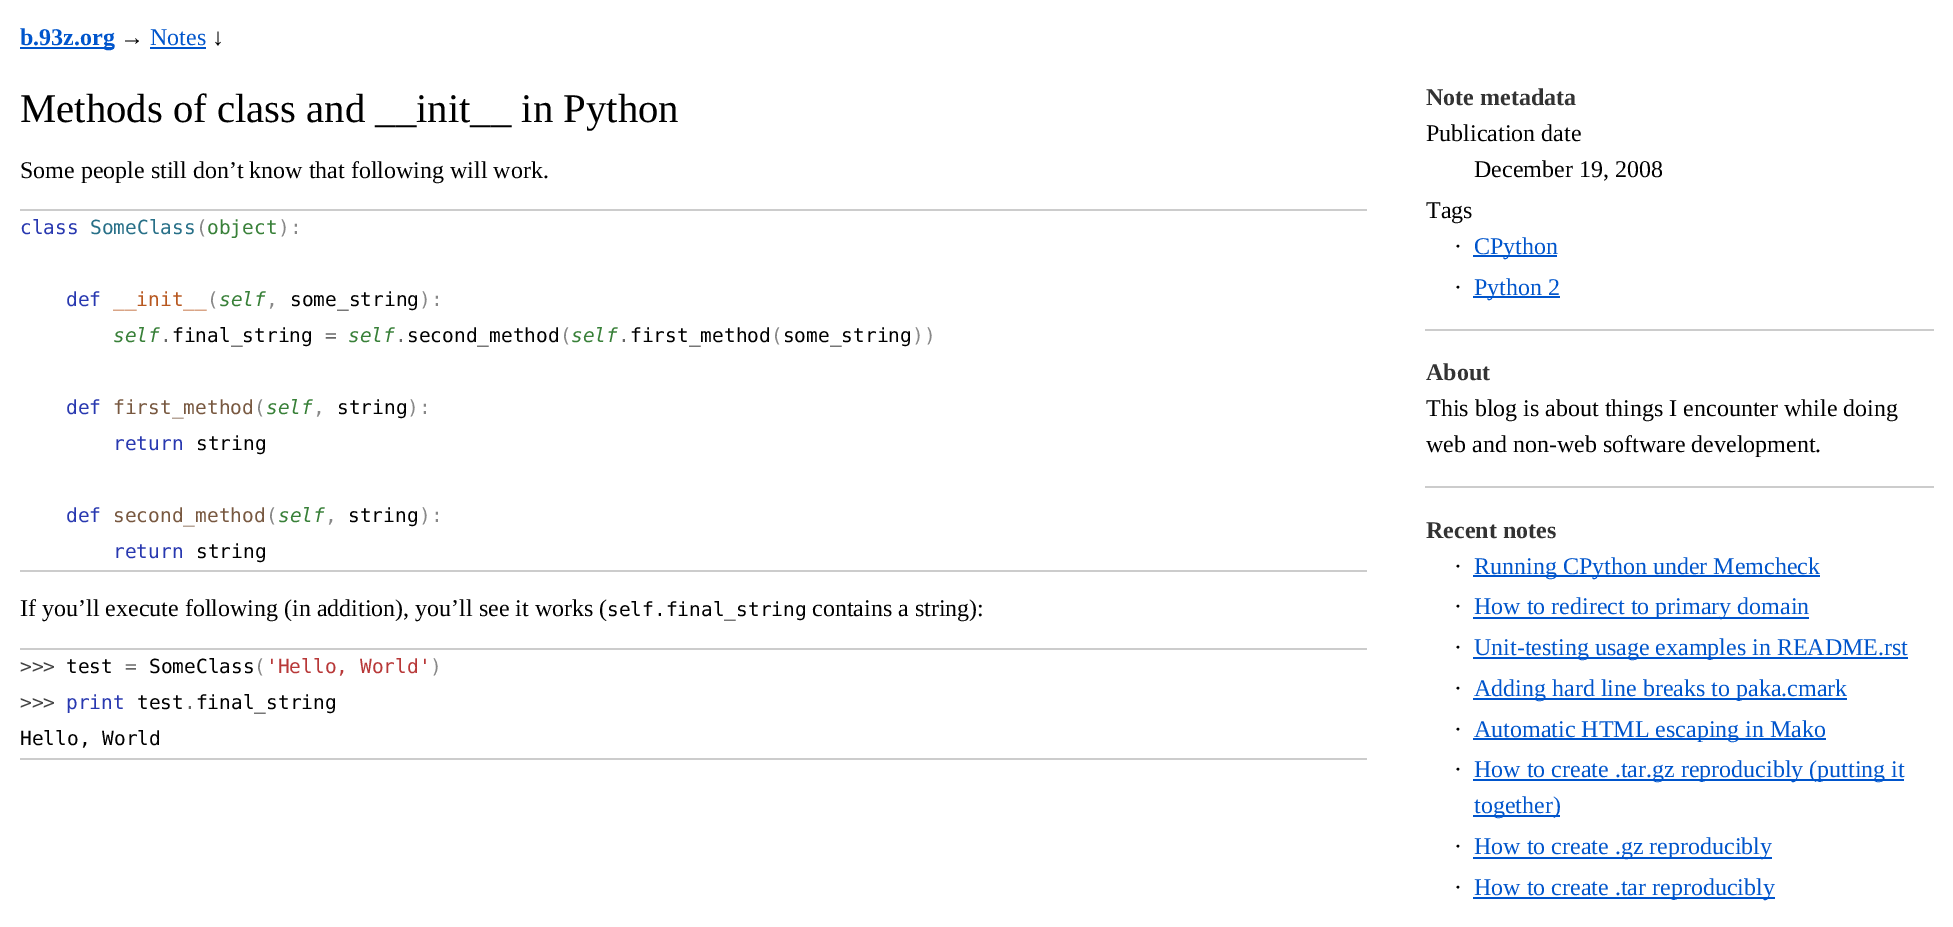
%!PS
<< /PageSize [1953 927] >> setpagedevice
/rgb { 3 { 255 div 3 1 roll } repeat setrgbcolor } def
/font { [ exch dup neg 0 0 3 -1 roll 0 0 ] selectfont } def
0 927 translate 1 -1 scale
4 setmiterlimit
255 255 255 rgb
0 0 1953 927 rectfill
[
  [20 47 94 2 0 85 204]
  [150 47 56 2 0 85 204]
  [20 209 1347 2 204 204 204]
  [20 570 1347 2 204 204 204]
  [20 648 1347 2 204 204 204]
  [20 758 1347 2 204 204 204]
  [1473 255 84 2 0 85 204]
  [1473 296 87 2 0 85 204]
  [1425 329 509 2 204 204 204]
  [1425 486 509 2 204 204 204]
  [1473 575 347 2 0 85 204]
  [1473 617 336 2 0 85 204]
  [1473 657 435 2 0 85 204]
  [1473 698 374 2 0 85 204]
  [1473 738 353 2 0 85 204]
  [1473 779 431 2 0 85 204]
  [1473 815 87 2 0 85 204]
  [1473 857 299 2 0 85 204]
  [1473 897 302 2 0 85 204]
] { aload pop rgb rectfill } forall
/LiberationSerif-Bold 24 font
20 45 moveto (b.93z.org) show
/LiberationSerif-Regular 24 font
0 0 0 rgb
120 45 moveto (→) show
0 85 204 rgb
150 45 moveto (Notes) show
0 0 0 rgb
212 45 moveto (↓) show
/LiberationSerif-Regular 40.75 font
20 122 moveto (Methods of class and __init__ in Python) show
/LiberationSerif-Regular 24 font
20 178 moveto (Some people still don’t know that following will work.) show
/DejaVuSansMono-Regular 19.5 font
40 56 176 rgb
20 234 moveto (class) show
40 112 136 rgb
90 234 moveto (SomeClass) show
136 136 136 rgb
196 234 moveto (\() show
56 128 56 rgb
207 234 moveto (object) show
136 136 136 rgb
278 234 moveto (\):) show
40 56 176 rgb
66 306 moveto (def) show
184 88 32 rgb
113 306 moveto (__init__) show
136 136 136 rgb
207 306 moveto (\() show
/DejaVuSansMono-Italic 19.5 font
56 128 56 rgb
219 306 moveto (self) show
/DejaVuSansMono-Regular 19.5 font
136 136 136 rgb
266 306 moveto (,) show
0 0 0 rgb
290 306 moveto (some_string) show
136 136 136 rgb
419 306 moveto (\):) show
/DejaVuSansMono-Italic 19.5 font
56 128 56 rgb
113 342 moveto (self) show
/DejaVuSansMono-Regular 19.5 font
0 0 0 rgb
172 342 moveto (final_string) show
/DejaVuSansMono-Italic 19.5 font
56 128 56 rgb
348 342 moveto (self) show
/DejaVuSansMono-Regular 19.5 font
0 0 0 rgb
407 342 moveto (second_method) show
136 136 136 rgb
560 342 moveto (\() show
/DejaVuSansMono-Italic 19.5 font
56 128 56 rgb
571 342 moveto (self) show
/DejaVuSansMono-Regular 19.5 font
0 0 0 rgb
630 342 moveto (first_method some_string) show
102 102 102 rgb
325 342 moveto (=) show
136 136 136 rgb
771 342 moveto (\() show
912 342 moveto (\)\)) show
102 102 102 rgb
[
  [(.) 160 342]
  [(.) 395 342]
  [(.) 618 342]
] { aload pop moveto show } forall
40 56 176 rgb
66 414 moveto (def) show
120 88 64 rgb
113 414 moveto (first_method) show
136 136 136 rgb
254 414 moveto (\() show
/DejaVuSansMono-Italic 19.5 font
56 128 56 rgb
266 414 moveto (self) show
/DejaVuSansMono-Regular 19.5 font
136 136 136 rgb
313 414 moveto (,) show
0 0 0 rgb
337 414 moveto (string) show
136 136 136 rgb
407 414 moveto (\):) show
40 56 176 rgb
113 450 moveto (return) show
0 0 0 rgb
196 450 moveto (string) show
40 56 176 rgb
66 522 moveto (def) show
120 88 64 rgb
113 522 moveto (second_method) show
136 136 136 rgb
266 522 moveto (\() show
/DejaVuSansMono-Italic 19.5 font
56 128 56 rgb
278 522 moveto (self) show
/DejaVuSansMono-Regular 19.5 font
136 136 136 rgb
325 522 moveto (,) show
0 0 0 rgb
348 522 moveto (string) show
136 136 136 rgb
419 522 moveto (\):) show
40 56 176 rgb
113 558 moveto (return) show
0 0 0 rgb
196 558 moveto (string) show
/LiberationSerif-Regular 24 font
20 616 moveto (If you’ll execute following \(in addition\), you’ll see it works \() show
/DejaVuSansMono-Regular 19.5 font
607 616 moveto (self.final_string) show
/LiberationSerif-Regular 24 font
812 616 moveto (contains a string\):) show
/DejaVuSansMono-Regular 19.5 font
68 68 68 rgb
20 673 moveto (>>>) show
0 0 0 rgb
66 673 moveto (test) show
102 102 102 rgb
125 673 moveto (=) show
0 0 0 rgb
149 673 moveto (SomeClass) show
136 136 136 rgb
254 673 moveto (\() show
184 56 56 rgb
266 673 moveto ('Hello, World') show
136 136 136 rgb
430 673 moveto (\)) show
68 68 68 rgb
20 709 moveto (>>>) show
40 56 176 rgb
66 709 moveto (print) show
0 0 0 rgb
137 709 moveto (test final_string) show
102 102 102 rgb
184 709 moveto (.) show
0 0 0 rgb
20 745 moveto (Hello, World) show
/LiberationSerif-Bold 24 font
51 51 51 rgb
1426 105 moveto (Note metadata) show
/LiberationSerif-Regular 24 font
0 0 0 rgb
[
  [(Publication date) 1426 141]
  [(December 19, 2008) 1474 177]
  [(Tags) 1426 218]
  [(·) 1454 254]
] { aload pop moveto show } forall
0 85 204 rgb
1474 254 moveto (CPython) show
0 0 0 rgb
1454 295 moveto (·) show
0 85 204 rgb
1474 295 moveto (Python 2) show
/LiberationSerif-Bold 24 font
51 51 51 rgb
1426 380 moveto (About) show
/LiberationSerif-Regular 24 font
0 0 0 rgb
1426 416 moveto (This blog is about things I encounter while doing) show
1426 452 moveto (web and non-web software development.) show
/LiberationSerif-Bold 24 font
51 51 51 rgb
1426 538 moveto (Recent notes) show
/LiberationSerif-Regular 24 font
0 0 0 rgb
1454 574 moveto (·) show
0 85 204 rgb
1474 574 moveto (Running CPython under Memcheck) show
0 0 0 rgb
1454 614 moveto (·) show
0 85 204 rgb
1474 614 moveto (How to redirect to primary domain) show
0 0 0 rgb
1454 655 moveto (·) show
0 85 204 rgb
1474 655 moveto (Unit-testing usage examples in README.rst) show
0 0 0 rgb
1454 696 moveto (·) show
0 85 204 rgb
1474 696 moveto (Adding hard line breaks to paka.cmark) show
0 0 0 rgb
1454 737 moveto (·) show
0 85 204 rgb
1474 737 moveto (Automatic HTML escaping in Mako) show
0 0 0 rgb
1454 777 moveto (·) show
0 85 204 rgb
1474 777 moveto (How to create .tar.gz reproducibly \(putting it) show
1474 813 moveto (together\)) show
0 0 0 rgb
1454 854 moveto (·) show
0 85 204 rgb
1474 854 moveto (How to create .gz reproducibly) show
0 0 0 rgb
1454 895 moveto (·) show
0 85 204 rgb
1474 895 moveto (How to create .tar reproducibly) show
showpage
